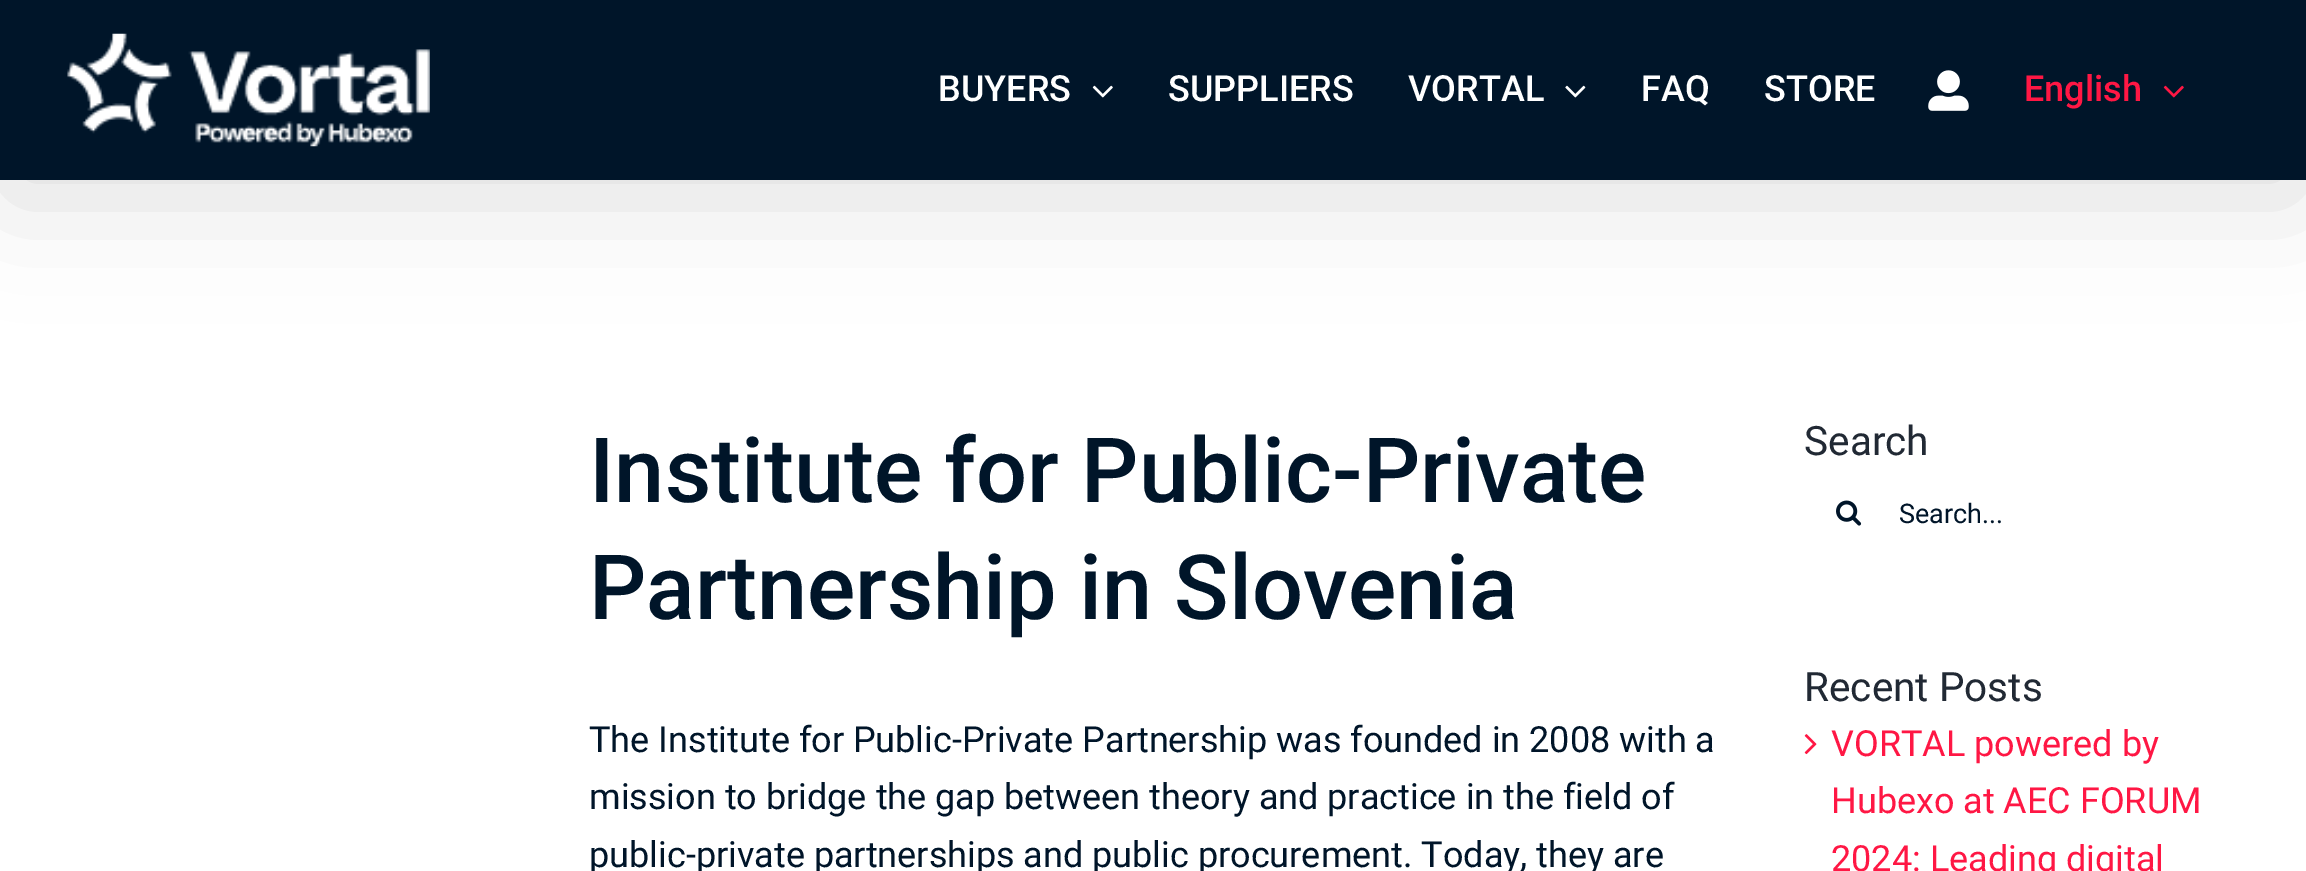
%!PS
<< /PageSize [2306 871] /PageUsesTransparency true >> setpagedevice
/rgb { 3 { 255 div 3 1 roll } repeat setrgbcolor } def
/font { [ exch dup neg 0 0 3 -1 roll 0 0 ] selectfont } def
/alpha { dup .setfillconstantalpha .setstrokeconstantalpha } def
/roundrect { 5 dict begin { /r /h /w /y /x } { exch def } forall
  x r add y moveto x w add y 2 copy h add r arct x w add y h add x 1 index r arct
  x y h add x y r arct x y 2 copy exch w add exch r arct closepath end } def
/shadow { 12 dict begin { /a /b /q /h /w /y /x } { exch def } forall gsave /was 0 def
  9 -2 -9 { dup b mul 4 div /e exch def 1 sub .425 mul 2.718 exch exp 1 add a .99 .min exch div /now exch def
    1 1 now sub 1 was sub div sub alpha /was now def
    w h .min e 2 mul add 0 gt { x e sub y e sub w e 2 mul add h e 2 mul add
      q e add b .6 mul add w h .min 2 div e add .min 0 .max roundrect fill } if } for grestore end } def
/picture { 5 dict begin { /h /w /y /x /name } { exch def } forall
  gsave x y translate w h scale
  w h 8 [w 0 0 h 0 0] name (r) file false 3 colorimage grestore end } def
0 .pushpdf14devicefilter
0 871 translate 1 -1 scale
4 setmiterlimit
255 255 255 rgb
0 0 2306 871 rectfill
0 0 0 rgb
5 27 2297 171 0 56 0.14 shadow
0 21 41 rgb
0 0 2306 180 rectfill
(img/1.rgb) 67 33 363 114 picture
(img/2.rgb) 1092 85 21 13 picture
(img/3.rgb) 1565 85 21 13 picture
(img/4.rgb) 1928 70 41 41 picture
(img/5.rgb) 2163 85 21 13 picture
(img/6.rgb) 1836 500 26 26 picture
(img/7.rgb) 1804 734 13 21 picture
/Roboto-Medium 36 font
255 255 255 rgb
[
  [(BUYERS) 938 101]
  [(SUPPLIERS) 1168 101]
  [(VORTAL) 1408 101]
  [(FAQ) 1641 101]
  [(STORE) 1764 101]
] { aload pop moveto show } forall
255 23 68 rgb
2024 101 moveto (English) show
/Roboto-Medium 90 font
0 21 41 rgb
589 502 moveto (Institute for Public-Private) show
589 619 moveto (Partnership in Slovenia) show
/Roboto-Regular 36 font
[
  [(The Institute for Public-Private Partnership was founded in 2008 with a) 589 752]
  [(mission to bridge the gap between theory and practice in the field of) 589 809]
  [(public-private partnerships and public procurement. Today, they are) 589 867]
] { aload pop moveto show } forall
/Roboto-Regular 40.5 font
33 41 52 rgb
1804 455 moveto (Search) show
/Roboto-Regular 27 font
0 21 41 rgb
1899 523 moveto (Search...) show
/Roboto-Regular 40.5 font
33 41 52 rgb
1804 701 moveto (Recent Posts) show
/Roboto-Regular 36 font
255 23 68 rgb
[
  [(VORTAL powered by) 1831 756]
  [(Hubexo at AEC FORUM) 1831 813]
  [(2024: Leading digital) 1831 871]
] { aload pop moveto show } forall
.poppdf14devicefilter showpage
